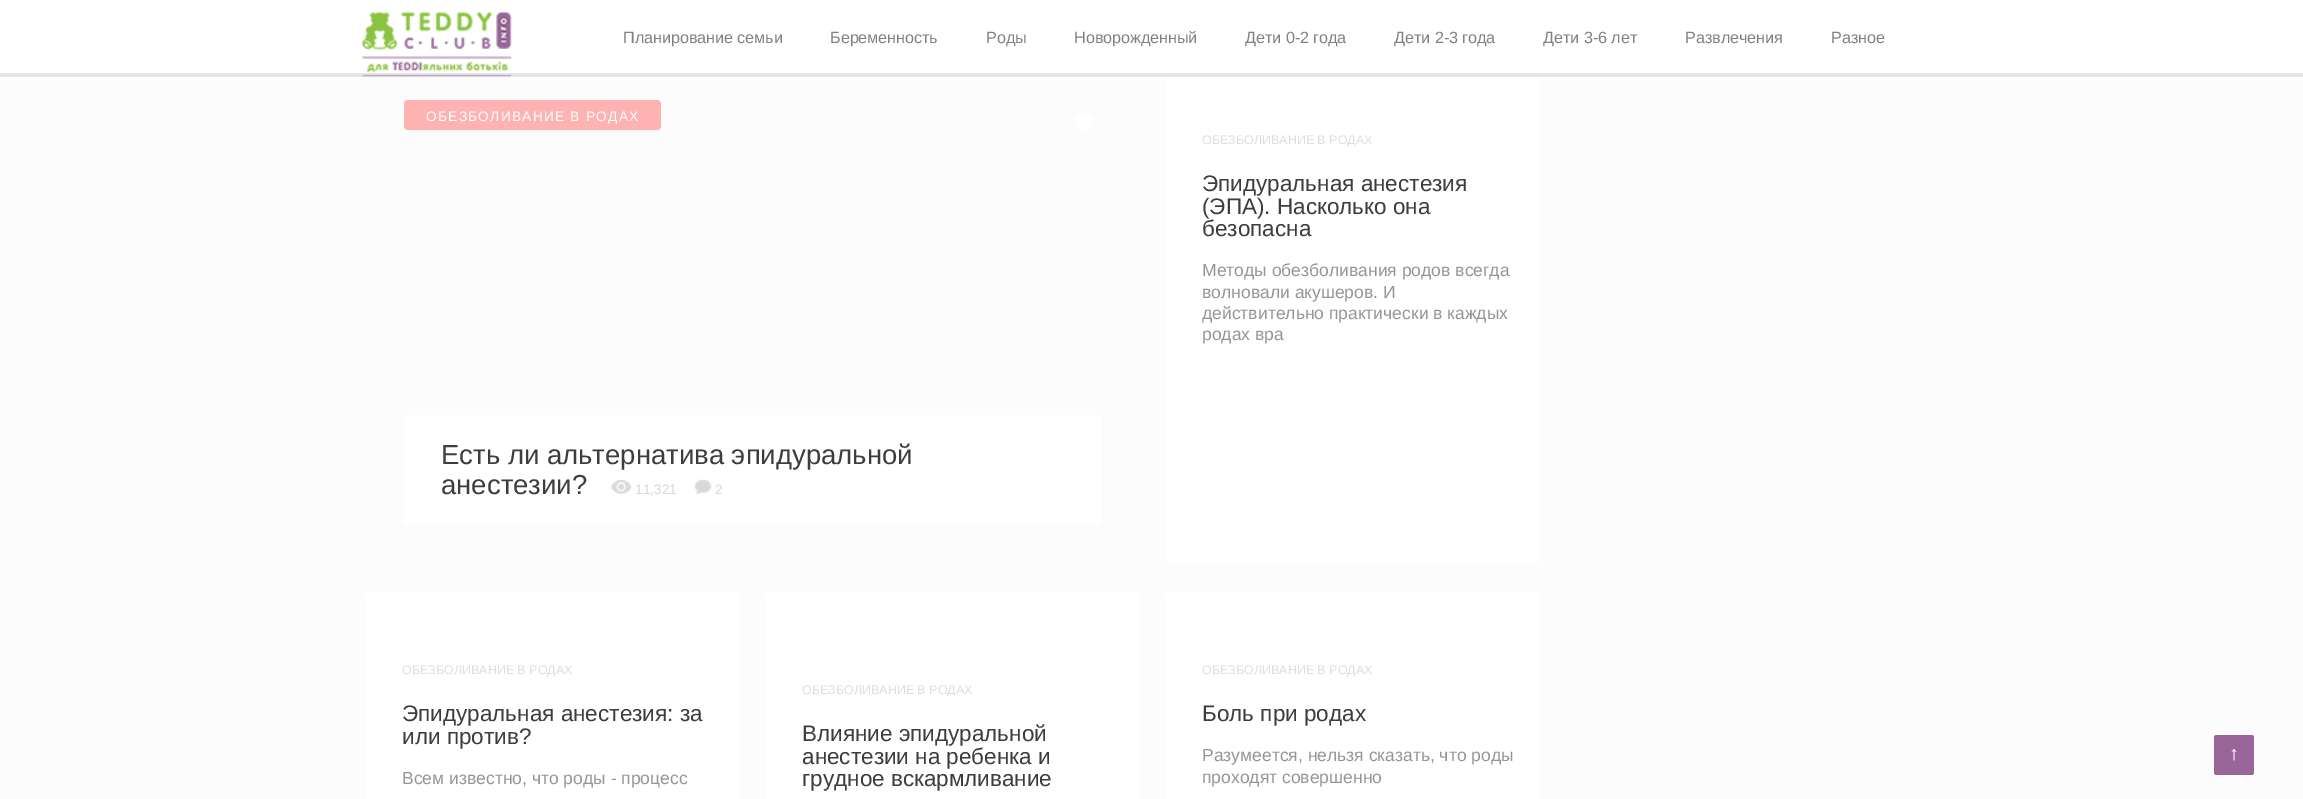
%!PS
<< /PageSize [2303 799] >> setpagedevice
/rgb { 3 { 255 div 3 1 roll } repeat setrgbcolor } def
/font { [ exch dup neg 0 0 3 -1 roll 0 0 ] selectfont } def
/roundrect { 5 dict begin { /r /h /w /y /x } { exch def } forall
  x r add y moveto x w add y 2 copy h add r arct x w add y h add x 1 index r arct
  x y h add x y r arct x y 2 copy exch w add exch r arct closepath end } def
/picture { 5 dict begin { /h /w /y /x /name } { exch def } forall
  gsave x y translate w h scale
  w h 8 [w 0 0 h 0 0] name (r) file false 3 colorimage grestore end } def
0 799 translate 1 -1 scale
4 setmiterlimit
252 252 252 rgb
0 0 2303 799 rectfill
255 255 255 rgb
1165 63 375 500 4 roundrect fill
0 0 2303 73 rectfill
230 230 230 rgb
0 73 2303 4 rectfill
(img/1.rgb) 362 12 150 65 picture
254 178 178 rgb
404 100 257 30 4 roundrect fill
255 255 255 rgb
404 415 697 110 rectfill
(img/2.rgb) 611 480 21 14 picture
(img/3.rgb) 695 479 17 15 picture
1075 113 18 17 8.5 roundrect fill
365 593 375 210 4 roundrect fill
765 593 375 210 4 roundrect fill
1165 593 375 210 4 roundrect fill
153 102 153 rgb
2214 735 40 40 2.5 roundrect fill
/LiberationSans-Regular 16.25 font
130 129 129 rgb
623 43 moveto -0.1 0 (Планирование семьи) ashow
830 43 moveto -0.1 0 (Беременность) ashow
986 43 moveto -0.1 0 (Роды) ashow
1074 43 moveto -0.1 0 (Новорожденный) ashow
1245 43 moveto -0.1 0 (Дети 0-2 года) ashow
1394 43 moveto -0.1 0 (Дети 2-3 года) ashow
1543 43 moveto -0.1 0 (Дети 3-6 лет) ashow
1685 43 moveto -0.1 0 (Развлечения) ashow
1831 43 moveto -0.1 0 (Разное) ashow
/LiberationSans-Regular 13.75 font
254 254 254 rgb
426 121 moveto 1.25 0 (ОБЕЗБОЛИВАНИЕ В РОДАХ) ashow
/LiberationSans-Regular 27.5 font
61 61 61 rgb
441 464 moveto (Есть ли альтернатива эпидуральной) show
441 494 moveto (анестезии?) show
/LiberationSans-Regular 13.75 font
217 215 215 rgb
635 494 moveto (11,321) show
715 494 moveto (2) show
/LiberationSans-Regular 12.5 font
222 222 222 rgb
1202 144 moveto (ОБЕЗБОЛИВАНИЕ В РОДАХ) show
/LiberationSans-Regular 22.5 font
61 61 61 rgb
[
  [(Эпидуральная анестезия) 1202 191]
  [(\(ЭПА\). Насколько она) 1202 214]
  [(безопасна) 1202 236]
] { aload pop moveto show } forall
/LiberationSans-Regular 17.5 font
150 149 149 rgb
[
  [(Методы обезболивания родов всегда) 1202 276]
  [(волновали акушеров. И) 1202 298]
  [(действительно практически в каждых) 1202 319]
  [(родах вра) 1202 340]
] { aload pop moveto show } forall
/LiberationSans-Regular 12.5 font
222 222 222 rgb
402 674 moveto (ОБЕЗБОЛИВАНИЕ В РОДАХ) show
/LiberationSans-Regular 22.5 font
61 61 61 rgb
402 721 moveto (Эпидуральная анестезия: за) show
402 744 moveto (или против?) show
/LiberationSans-Regular 17.5 font
150 149 149 rgb
402 784 moveto (Всем известно, что роды - процесс) show
/LiberationSans-Regular 12.5 font
222 222 222 rgb
802 694 moveto (ОБЕЗБОЛИВАНИЕ В РОДАХ) show
/LiberationSans-Regular 22.5 font
61 61 61 rgb
[
  [(Влияние эпидуральной) 802 741]
  [(анестезии на ребенка и) 802 764]
  [(грудное вскармливание) 802 786]
] { aload pop moveto show } forall
/LiberationSans-Regular 12.5 font
222 222 222 rgb
1202 674 moveto (ОБЕЗБОЛИВАНИЕ В РОДАХ) show
/LiberationSans-Regular 22.5 font
61 61 61 rgb
1202 721 moveto (Боль при родах) show
/LiberationSans-Regular 17.5 font
150 149 149 rgb
1202 761 moveto (Разумеется, нельзя сказать, что роды) show
1202 783 moveto (проходят совершенно) show
/LiberationSans-Regular 20 font
254 254 254 rgb
2229 760 moveto (↑) show
showpage
